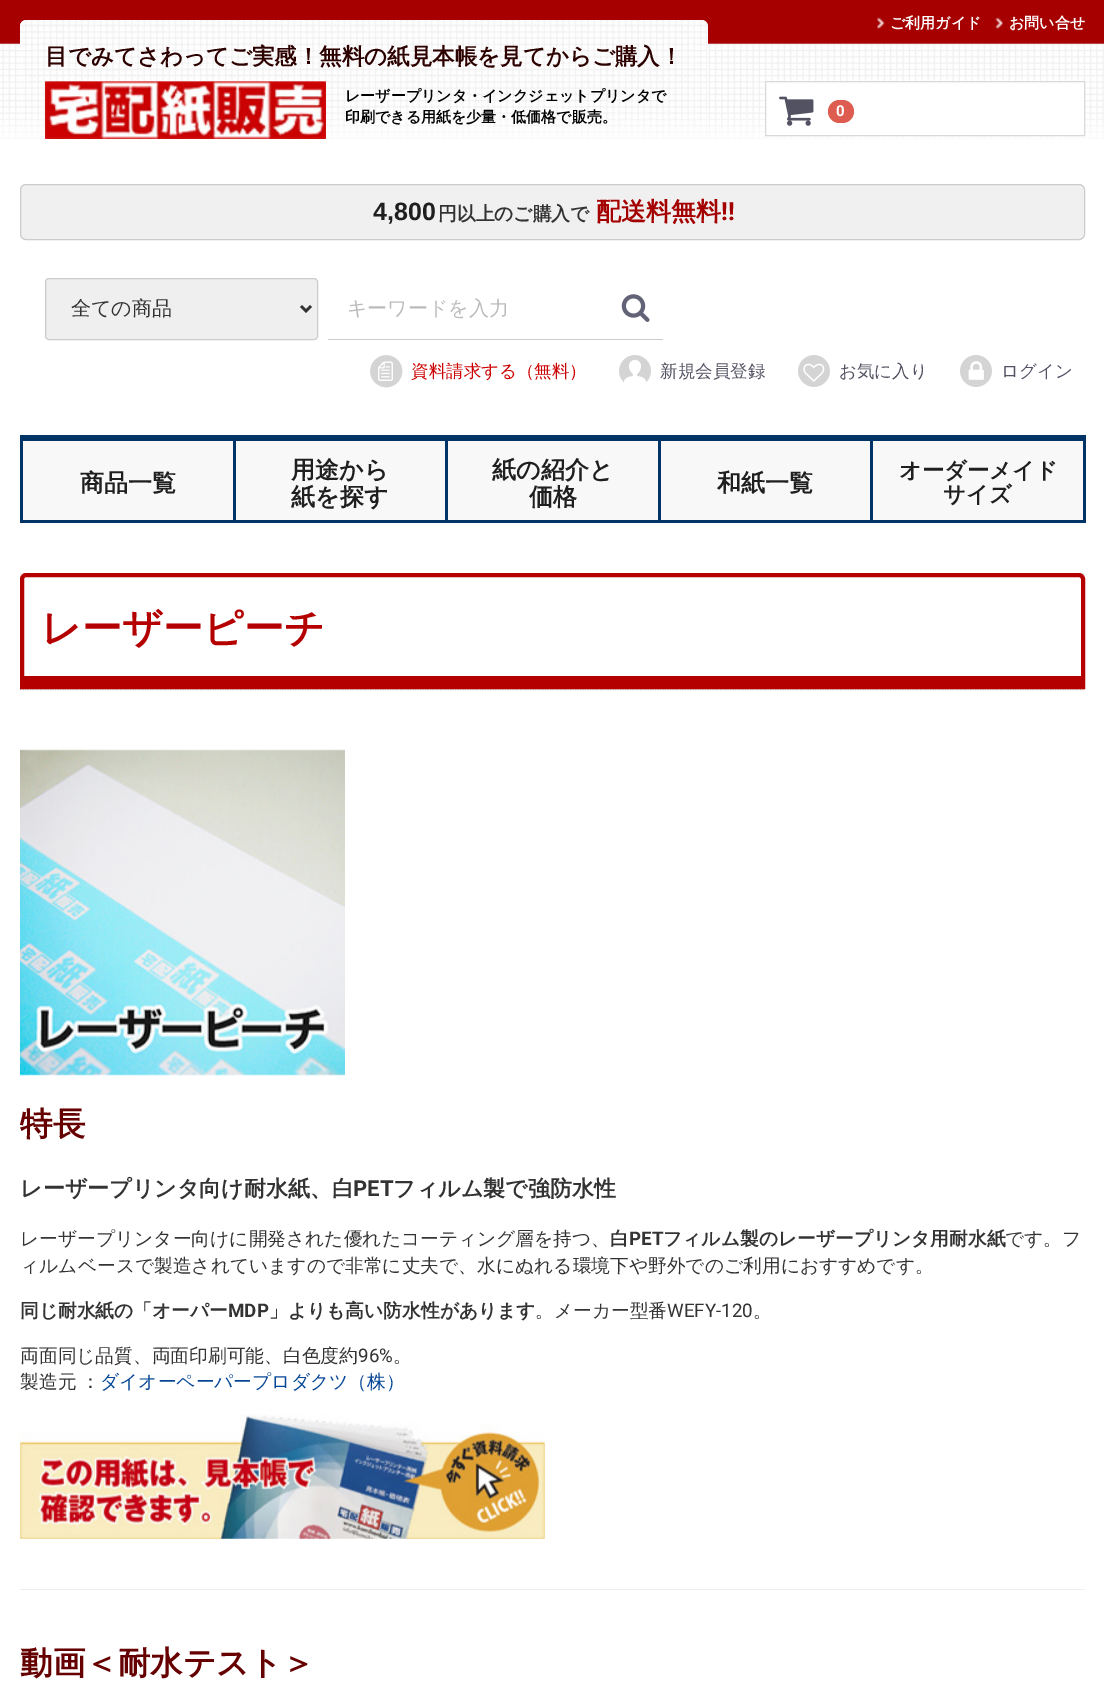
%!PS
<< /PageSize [1104 1694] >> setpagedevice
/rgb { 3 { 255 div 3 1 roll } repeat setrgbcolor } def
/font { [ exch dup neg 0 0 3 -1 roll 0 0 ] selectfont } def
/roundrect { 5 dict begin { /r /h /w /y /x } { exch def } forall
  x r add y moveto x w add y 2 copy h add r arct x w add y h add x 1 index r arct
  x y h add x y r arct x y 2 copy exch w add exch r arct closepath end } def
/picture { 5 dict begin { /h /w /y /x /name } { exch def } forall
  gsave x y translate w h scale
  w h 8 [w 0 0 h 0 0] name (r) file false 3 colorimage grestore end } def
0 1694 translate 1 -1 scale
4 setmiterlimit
255 255 255 rgb
0 0 1104 1694 rectfill
(img/1.rgb) 0 0 1104 139 picture
(img/2.rgb) 877 17 8 12 picture
(img/3.rgb) 995 17 8 12 picture
20 20 688 144 6 roundrect fill
(img/4.rgb) 20 20 688 119 picture
(img/5.rgb) 45 81 281 58 picture
765.5 81.5 moveto 1084.5 81.5 lineto 1084.5 135.5 lineto 765.5 135.5 lineto closepath gsave fill grestore
217 217 217 rgb
stroke
(img/6.rgb) 779 96 35 30 picture
222 93 80 rgb
828 100 26 23 11.5 roundrect fill
240 240 240 rgb
20.5 184.5 1064 55 5.5 roundrect gsave fill grestore
204 204 204 rgb
stroke
239 239 239 rgb
45.5 278.5 272 61 3.5 roundrect gsave fill grestore
204 204 204 rgb
stroke
51 51 51 rgb
2.5 setlinewidth
301 306 moveto 306 311 lineto 311 306 lineto stroke
204 204 204 rgb
328 339 335 1 rectfill
(img/7.rgb) 621 294 29 28 picture
(img/8.rgb) 370 355 33 33 picture
(img/9.rgb) 619 355 32 32 picture
(img/10.rgb) 798 355 32 32 picture
(img/11.rgb) 960 355 32 32 picture
[
  [23 441 210 79 248 248 248]
  [20 435 1065 6 0 51 102]
  [20 520 853 3 0 51 102]
  [20 435 3 88 0 51 102]
  [236 441 209 79 248 248 248]
  [233 435 3 88 0 51 102]
  [448 441 210 79 248 248 248]
  [445 435 3 88 0 51 102]
  [661 441 209 79 248 248 248]
  [658 435 3 88 0 51 102]
  [873 441 210 79 248 248 248]
  [1083 435 3 88 0 51 102]
  [870 520 215 3 0 51 102]
  [870 435 3 88 0 51 102]
] { aload pop rgb rectfill } forall
(img/12.rgb) 20 573 1065 118 picture
204 204 204 rgb
1.2 setlinewidth
[1.25 1.25] 0 setdash
20 689.5 moveto 1085 689.5 lineto stroke
255 255 255 rgb
26.5 576 moveto 1078.5 576 lineto 1080 576 1081 577 1081 578.5 curveto 1081 676 lineto 24 676 lineto 24 578.5 lineto 24 577 25 576 26.5 576 curveto closepath fill
181 0 0 rgb
4 setlinewidth
[] 0 setdash
26 575 moveto 1079 575 lineto 1081 575 1083 577 1083 579 curveto 1083 687 lineto 22 687 lineto 22 579 lineto 22 577 24 575 26 575 curveto closepath stroke
24 676 1057 9 rectfill
(img/13.rgb) 20 749 325 327 picture
(img/14.rgb) 20 1414 525 125 picture
238 238 238 rgb
20 1589 1065 1 rectfill
/WenQuanYiZenHei-Bold 15 font
255 255 255 rgb
890 28 moveto (ご利用ガイド) show
1009 28 moveto (お問い合せ) show
/WenQuanYiZenHei-Bold 22.5 font
45 0 0 rgb
45 64 moveto (目でみてさわってご実感！無料の紙見本帳を見てからご購入！) show
/WenQuanYiZenHei-Bold 15 font
0 0 0 rgb
345 101 moveto (レーザープリンタ・インクジェットプリンタで) show
345 122 moveto (印刷できる用紙を少量・低価格で販売。) show
/Roboto-Bold 15 font
255 255 255 rgb
836 116 moveto (0) show
/LiberationSans-Bold 25 font
31 31 31 rgb
373 220 moveto (4,800) show
/WenQuanYiZenHei-Bold 18.75 font
51 51 51 rgb
438 220 moveto (円以上のご購入で) show
/WenQuanYiZenHei-Bold 25 font
165 0 0 rgb
596 220 moveto (配送料無料) show
/Roboto-Bold 25 font
721 220 moveto (!!) show
/WenQuanYiZenHei-Medium 20 font
51 51 51 rgb
71 315 moveto (全ての商品) show
187 187 187 rgb
347 315 moveto (キーワードを入力) show
/WenQuanYiZenHei-Medium 17.5 font
204 0 0 rgb
411 377 moveto (資料請求する（無料）) show
82 82 99 rgb
[
  [(新規会員登録) 660 377]
  [(お気に入り) 839 377]
  [(ログイン) 1001 377]
] { aload pop moveto show } forall
/WenQuanYiZenHei-Bold 24 font
31 31 31 rgb
[
  [(商品一覧) 80 491]
  [(用途から) 291 478]
  [(紙を探す) 291 505]
  [(紙の紹介と) 492 478]
  [(価格) 529 505]
  [(和紙一覧) 717 491]
] { aload pop moveto show } forall
/WenQuanYiZenHei-Bold 22.25 font
899 478 moveto (オーダーメイド) show
943 502 moveto (サイズ) show
/WenQuanYiZenHei-Bold 40 font
181 0 0 rgb
41 642 moveto (レーザーピーチ) show
/WenQuanYiZenHei-Bold 32.5 font
102 0 0 rgb
20 1135 moveto (特長) show
/WenQuanYiZenHei-Bold 22 font
51 51 51 rgb
20 1196 moveto (レーザープリンタ向け耐水紙、白) show
/Roboto-Bold 22 font
353 1196 moveto (PET) show
/WenQuanYiZenHei-Bold 22 font
393 1196 moveto (フィルム製で強防水性) show
/WenQuanYiZenHei-Medium 18.75 font
20 1245 moveto (レーザープリンター向けに開発された優れたコーティング層を持つ、) show
/WenQuanYiZenHei-Bold 18.75 font
610 1245 moveto (白) show
/Roboto-Bold 18.75 font
629 1245 moveto (PET) show
/WenQuanYiZenHei-Bold 18.75 font
663 1245 moveto (フィルム製のレーザープリンタ用耐水紙) show
/WenQuanYiZenHei-Medium 18.75 font
1005 1245 moveto (です。フ) show
20 1272 moveto (ィルムベースで製造されていますので非常に丈夫で、水にぬれる環境下や野外でのご利用におすすめです。) show
/WenQuanYiZenHei-Bold 18.75 font
20 1317 moveto (同じ耐水紙の「オーパー) show
/Roboto-Bold 18.75 font
228 1317 moveto (MDP) show
/WenQuanYiZenHei-Bold 18.75 font
269 1317 moveto (」よりも高い防水性があります) show
/WenQuanYiZenHei-Medium 18.75 font
535 1317 moveto (。メーカー型番) show
/Roboto-Regular 18.75 font
667 1317 moveto (WEFY-120) show
/WenQuanYiZenHei-Medium 18.75 font
753 1317 moveto (。) show
20 1362 moveto (両面同じ品質、両面印刷可能、白色度約) show
/Roboto-Regular 18.75 font
358 1362 moveto (96%) show
/WenQuanYiZenHei-Medium 18.75 font
393 1362 moveto (。) show
20 1388 moveto -1 0 32 (製造元 ：) widthshow
4 70 150 rgb
100 1388 moveto (ダイオーペーパープロダクツ（株）) show
/WenQuanYiZenHei-Bold 32.5 font
102 0 0 rgb
20 1674 moveto (動画＜耐水テスト＞) show
showpage
